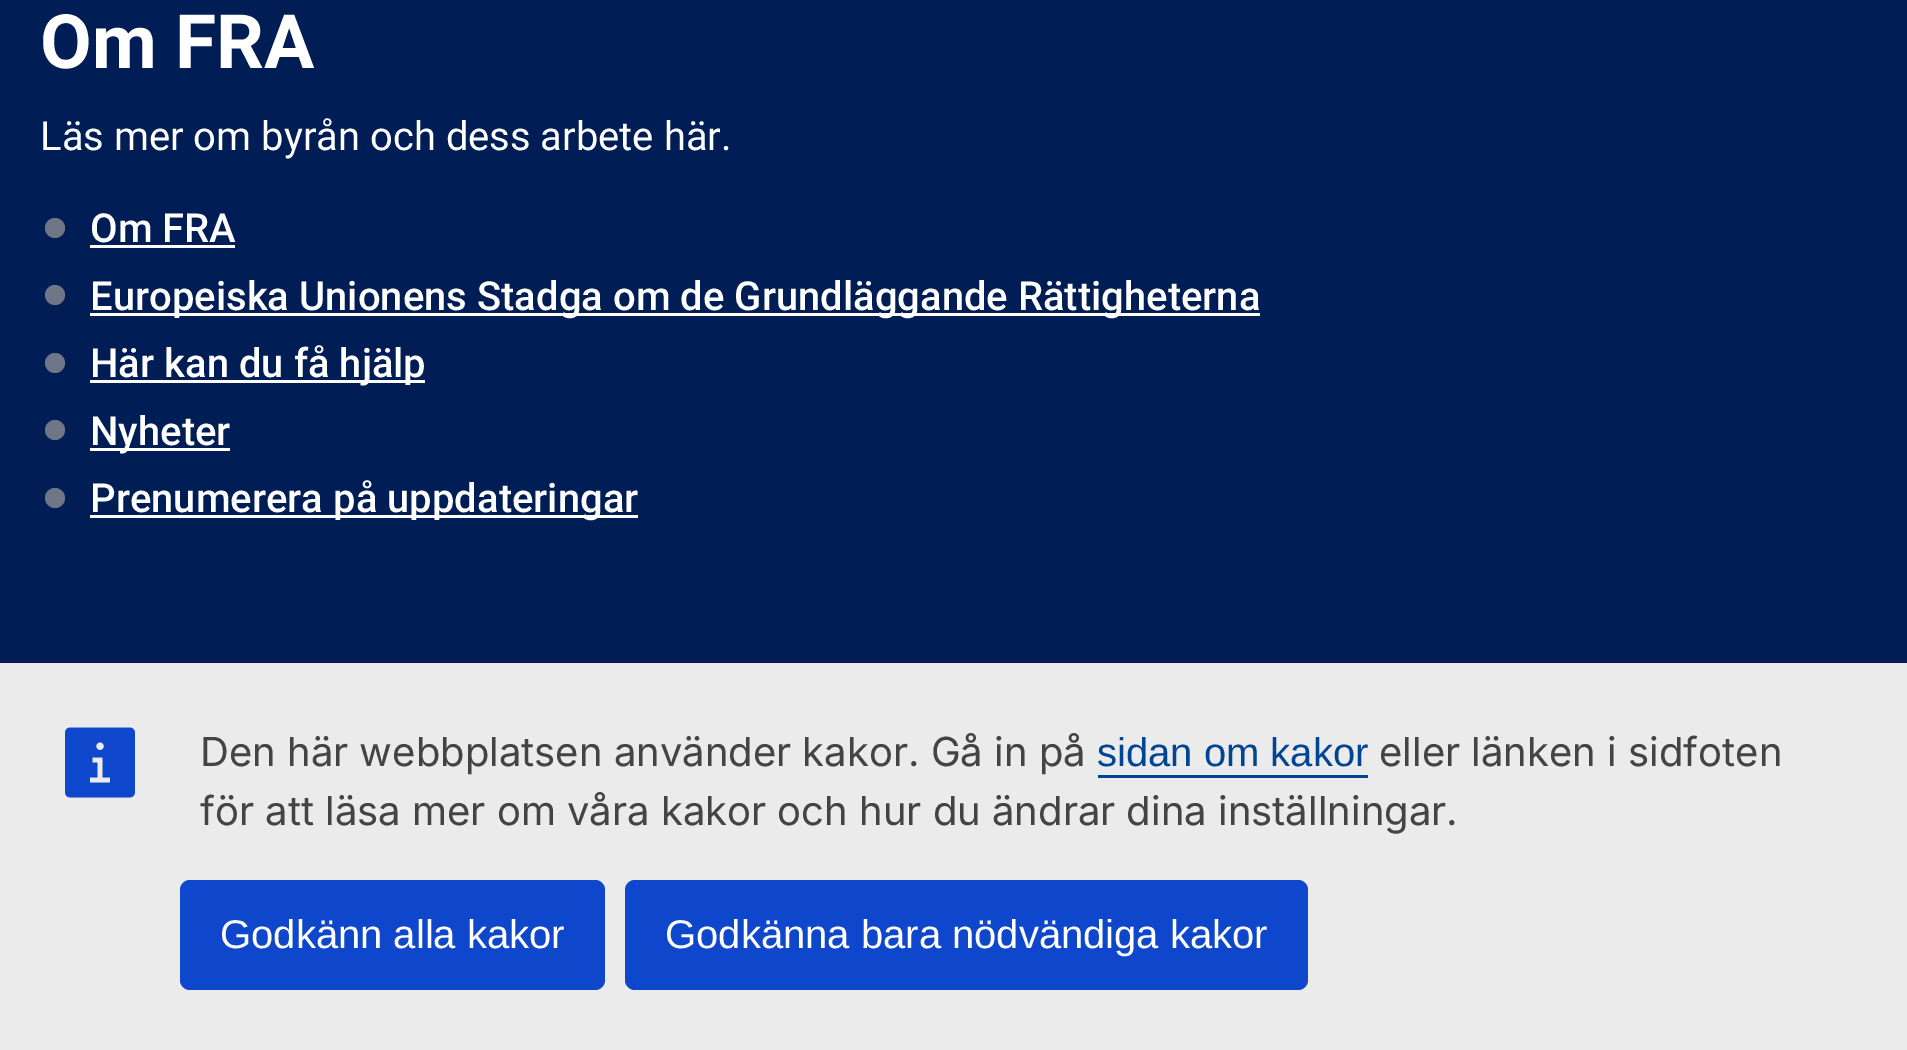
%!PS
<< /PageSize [1907 1050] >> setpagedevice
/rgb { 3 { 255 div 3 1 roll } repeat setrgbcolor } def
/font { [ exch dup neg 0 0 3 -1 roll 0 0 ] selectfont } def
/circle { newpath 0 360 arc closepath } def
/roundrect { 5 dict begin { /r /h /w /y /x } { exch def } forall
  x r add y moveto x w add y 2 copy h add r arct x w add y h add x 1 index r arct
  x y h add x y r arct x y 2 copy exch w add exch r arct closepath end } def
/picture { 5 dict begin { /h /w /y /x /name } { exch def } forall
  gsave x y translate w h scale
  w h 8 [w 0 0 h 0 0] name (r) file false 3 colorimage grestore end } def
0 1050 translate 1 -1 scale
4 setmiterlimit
1 29 85 rgb
0 0 1907 1050 rectfill
110 118 135 rgb
55 228 10 circle fill
255 255 255 rgb
90 245 145 3 rectfill
110 118 135 rgb
55 295 10 circle fill
255 255 255 rgb
90 313 1170 3 rectfill
110 118 135 rgb
55 363 10 circle fill
255 255 255 rgb
90 380 335 3 rectfill
110 118 135 rgb
55 430 10 circle fill
255 255 255 rgb
90 448 140 3 rectfill
110 118 135 rgb
55 498 10 circle fill
255 255 255 rgb
90 515 548 3 rectfill
235 235 235 rgb
0 663 1907 387 rectfill
(img/1.rgb) 65 727 70 71 picture
0 68 148 rgb
1098 775 270 3 rectfill
14 71 203 rgb
180 880 425 110 10 roundrect fill
625 880 683 110 10 roundrect fill
/Roboto-Bold 75 font
255 255 255 rgb
40 68 moveto (Om FRA) show
/Roboto-Regular 40 font
40 150 moveto (Läs mer om byrån och dess arbete här.) show
/Roboto-Medium 40 font
[
  [(Om FRA) 90 242]
  [(Europeiska Unionens Stadga om de Grundläggande Rättigheterna) 90 310]
  [(Här kan du få hjälp) 90 377]
  [(Nyheter) 90 445]
  [(Prenumerera på uppdateringar) 90 512]
] { aload pop moveto show } forall
/Inter-Regular 40 font
68 68 68 rgb
200 766 moveto (Den här webbplatsen använder kakor. Gå in på) show
/LiberationSans-Regular 40 font
0 68 148 rgb
1097 766 moveto (sidan om kakor) show
/Inter-Regular 40 font
68 68 68 rgb
1379 766 moveto (eller länken i sidfoten) show
200 825 moveto (för att läsa mer om våra kakor och hur du ändrar dina inställningar.) show
/LiberationSans-Regular 40 font
255 255 255 rgb
220 948 moveto (Godkänn alla kakor) show
665 948 moveto (Godkänna bara nödvändiga kakor) show
showpage
